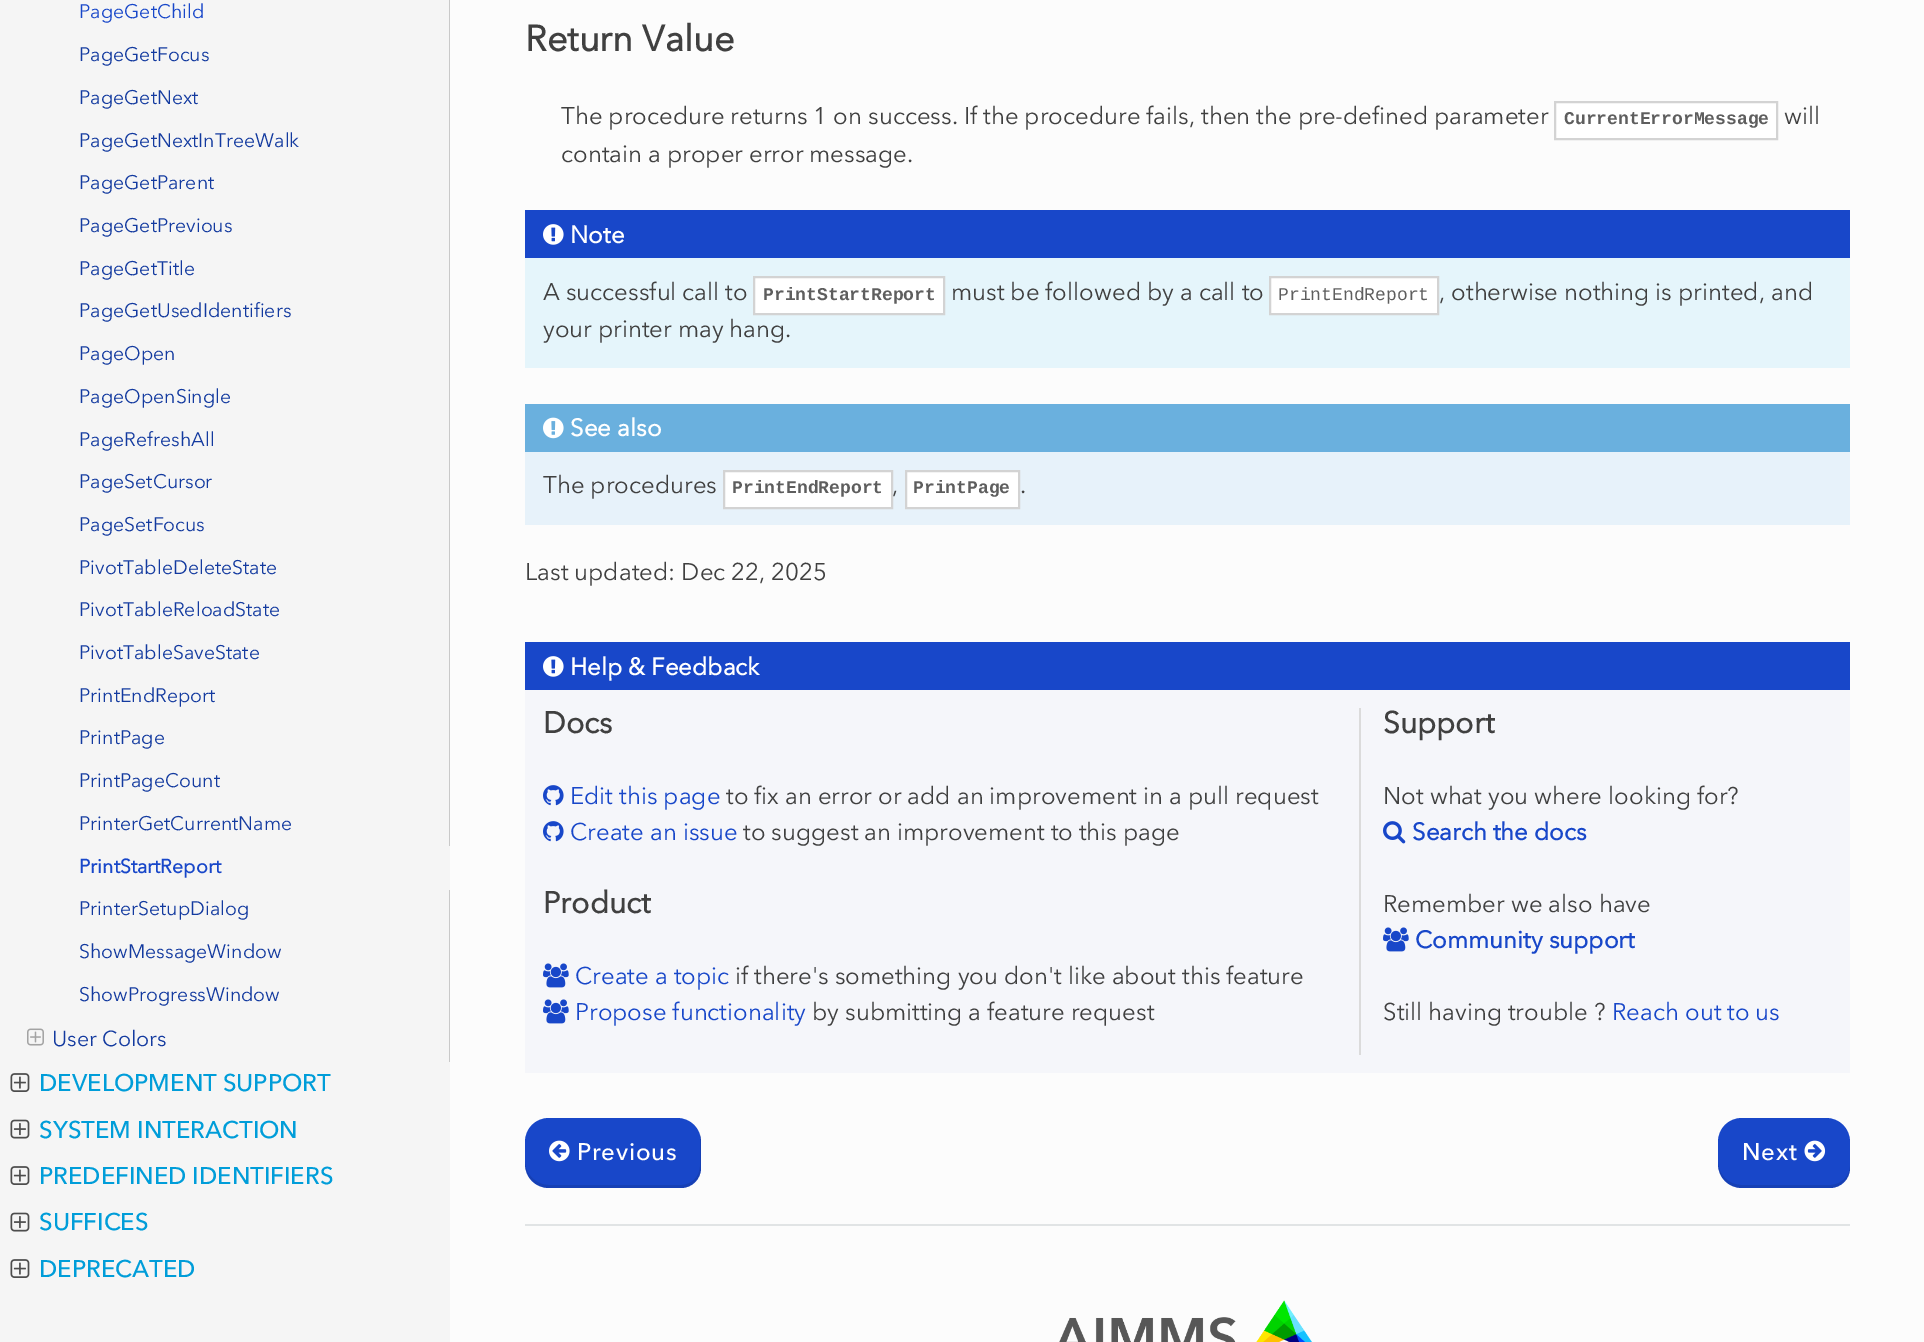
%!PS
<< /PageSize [1924 1342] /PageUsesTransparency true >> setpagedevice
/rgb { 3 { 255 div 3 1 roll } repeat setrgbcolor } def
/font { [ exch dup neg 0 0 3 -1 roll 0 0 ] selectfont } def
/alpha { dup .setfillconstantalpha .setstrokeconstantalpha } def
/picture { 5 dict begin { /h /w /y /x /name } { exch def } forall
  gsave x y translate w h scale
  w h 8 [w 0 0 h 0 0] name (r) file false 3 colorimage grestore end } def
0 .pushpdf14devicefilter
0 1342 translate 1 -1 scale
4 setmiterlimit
252 252 252 rgb
0 0 1924 1342 rectfill
[
  [0 0 450 1342 245 245 245]
  [449 0 1 846 201 201 201]
  [449 890 1 172 201 201 201]
] { aload pop rgb rectfill } forall
(img/1.rgb) 27 1028 17 18 picture
(img/2.rgb) 10 1073 20 19 picture
(img/3.rgb) 10 1119 20 20 picture
(img/2.rgb) 10 1166 20 19 picture
(img/3.rgb) 10 1212 20 20 picture
(img/2.rgb) 10 1259 20 19 picture
255 255 255 rgb
1555 102 moveto 1777 102 lineto 1777 139 lineto 1555 139 lineto closepath gsave fill grestore
211 211 211 rgb
2 setlinewidth
stroke
229 245 251 rgb
525 258 1325 110 rectfill
24 71 201 rgb
525 210 1325 48 rectfill
(img/4.rgb) 543 224 21 21 picture
255 255 255 rgb
754 277 moveto 944 277 lineto 944 314 lineto 754 314 lineto closepath gsave fill grestore
211 211 211 rgb
stroke
255 255 255 rgb
1270 277 moveto 1438 277 lineto 1438 314 lineto 1270 314 lineto closepath gsave fill grestore
211 211 211 rgb
stroke
231 242 250 rgb
525 452 1325 73 rectfill
106 176 222 rgb
525 404 1325 48 rectfill
(img/5.rgb) 543 417 21 22 picture
255 255 255 rgb
724 471 moveto 892 471 lineto 892 508 lineto 724 508 lineto closepath gsave fill grestore
211 211 211 rgb
stroke
255 255 255 rgb
906 471 moveto 1019 471 lineto 1019 508 lineto 906 508 lineto closepath gsave fill grestore
211 211 211 rgb
stroke
245 246 250 rgb
525 690 1325 383 rectfill
24 71 201 rgb
525 642 1325 48 rectfill
(img/4.rgb) 543 656 21 21 picture
(img/6.rgb) 543 785 21 21 picture
(img/6.rgb) 543 821 21 21 picture
(img/7.rgb) 543 963 26 25 picture
(img/7.rgb) 543 999 26 25 picture
219 219 219 rgb
1359 708 2 347 rectfill
(img/8.rgb) 1383 821 23 23 picture
(img/7.rgb) 1383 927 26 25 picture
24 71 201 rgb
549 1118 moveto 677 1118 lineto 690.5 1118 701 1128.5 701 1142 curveto 701 1168 lineto 701 1179 692 1188 681 1188 curveto 549 1188 lineto 535.5 1188 525 1177.5 525 1164 curveto 525 1142 lineto 525 1128.5 535.5 1118 549 1118 curveto closepath fill
0.1 alpha
0 0 0 rgb
525 1161 moveto 525 1164 lineto 525 1177 536 1188 549 1188 curveto 681 1188 lineto 692 1188 701 1179 701 1168 curveto 701 1142 lineto 701 1139 701 1137 700 1134 curveto 700 1166 lineto 700 1176 692 1185 681 1185 curveto 549 1185 lineto 536 1185 525 1174 525 1161 curveto closepath fill
1 alpha
(img/9.rgb) 549 1140 21 22 picture
24 71 201 rgb
1742 1118 moveto 1826 1118 lineto 1839.5 1118 1850 1128.5 1850 1142 curveto 1850 1168 lineto 1850 1179 1841 1188 1830 1188 curveto 1742 1188 lineto 1728.5 1188 1718 1177.5 1718 1164 curveto 1718 1142 lineto 1718 1128.5 1728.5 1118 1742 1118 curveto closepath fill
0.1 alpha
0 0 0 rgb
1718 1161 moveto 1718 1164 lineto 1718 1177 1729 1188 1742 1188 curveto 1830 1188 lineto 1841 1188 1850 1179 1850 1168 curveto 1850 1166 lineto 1850 1176 1841 1185 1830 1185 curveto 1742 1185 lineto 1728 1185 1718 1174 1718 1161 curveto closepath fill
1 alpha
(img/10.rgb) 1804 1140 22 22 picture
225 228 229 rgb
525 1224 1325 2 rectfill
(img/11.rgb) 1059 1300 253 42 picture
/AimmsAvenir-Regular 19.5 font
24 71 201 rgb
79 18 moveto (PageGetChild) show
19 58 159 rgb
[
  [(PageGetFocus) 79 61]
  [(PageGetNext) 79 104]
  [(PageGetNextInTreeWalk) 79 147]
  [(PageGetParent) 79 189]
  [(PageGetPrevious) 79 232]
  [(PageGetTitle) 79 275]
  [(PageGetUsedIdentifiers) 79 317]
  [(PageOpen) 79 360]
  [(PageOpenSingle) 79 403]
  [(PageRefreshAll) 79 446]
  [(PageSetCursor) 79 488]
  [(PageSetFocus) 79 531]
  [(PivotTableDeleteState) 79 574]
  [(PivotTableReloadState) 79 616]
  [(PivotTableSaveState) 79 659]
  [(PrintEndReport) 79 702]
  [(PrintPage) 79 744]
  [(PrintPageCount) 79 787]
  [(PrinterGetCurrentName) 79 830]
] { aload pop moveto show } forall
/AimmsAvenir-Bold 19.5 font
24 71 201 rgb
79 873 moveto (PrintStartReport) show
/AimmsAvenir-Regular 19.5 font
19 58 159 rgb
[
  [(PrinterSetupDialog) 79 915]
  [(ShowMessageWindow) 79 958]
  [(ShowProgressWindow) 79 1001]
] { aload pop moveto show } forall
/AimmsAvenir-Regular 21.5 font
52 1046 moveto (User Colors) show
/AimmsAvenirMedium-Regular 24 font
0 157 217 rgb
[
  [(DEVELOPMENT SUPPORT) 39 1091]
  [(SYSTEM INTERACTION) 39 1138]
  [(PREDEFINED IDENTIFIERS) 39 1184]
  [(SUFFICES) 39 1230]
  [(DEPRECATED) 39 1277]
] { aload pop moveto show } forall
/AimmsAvenir-Bold 36 font
64 64 64 rgb
525 51 moveto (Return Value) show
/AimmsAvenir-Regular 24 font
561 124 moveto (The procedure returns 1 on success. If the procedure fails, then the pre-defined parameter) show
/LiberationMono-Bold 18 font
94 94 94 rgb
1564 124 moveto (CurrentErrorMessage) show
/AimmsAvenir-Regular 24 font
64 64 64 rgb
1784 124 moveto (will) show
561 162 moveto (contain a proper error message.) show
/AimmsAvenir-Bold 24 font
255 255 255 rgb
570 243 moveto (Note) show
/AimmsAvenir-Regular 24 font
64 64 64 rgb
543 300 moveto (A successful call to) show
/LiberationMono-Bold 18 font
94 94 94 rgb
763 300 moveto (PrintStartReport) show
/AimmsAvenir-Regular 24 font
64 64 64 rgb
951 300 moveto (must be followed by a call to) show
/LiberationMono-Regular 18 font
94 94 94 rgb
1278 300 moveto (PrintEndReport) show
/AimmsAvenir-Regular 24 font
64 64 64 rgb
1439 300 moveto (, otherwise nothing is printed, and) show
543 337 moveto (your printer may hang.) show
/AimmsAvenir-Bold 24 font
255 255 255 rgb
570 436 moveto (See also) show
/AimmsAvenir-Regular 24 font
64 64 64 rgb
543 493 moveto (The procedures) show
/LiberationMono-Bold 18 font
94 94 94 rgb
732 493 moveto (PrintEndReport) show
/AimmsAvenir-Regular 24 font
64 64 64 rgb
892 493 moveto (,) show
/LiberationMono-Bold 18 font
94 94 94 rgb
913 493 moveto (PrintPage) show
/AimmsAvenir-Regular 24 font
64 64 64 rgb
1020 493 moveto (.) show
525 580 moveto (Last updated: Dec 22, 2025) show
/AimmsAvenir-Bold 24 font
255 255 255 rgb
570 675 moveto (Help & Feedback) show
/AimmsAvenir-Bold 30 font
64 64 64 rgb
543 733 moveto (Docs) show
/AimmsAvenir-Regular 24 font
24 71 201 rgb
570 804 moveto (Edit this page) show
64 64 64 rgb
726 804 moveto (to fix an error or add an improvement in a pull request) show
24 71 201 rgb
570 840 moveto (Create an issue) show
64 64 64 rgb
743 840 moveto (to suggest an improvement to this page) show
/AimmsAvenir-Bold 30 font
543 913 moveto (Product) show
/AimmsAvenir-Regular 24 font
24 71 201 rgb
575 984 moveto (Create a topic) show
64 64 64 rgb
735 984 moveto (if there's something you don't like about this feature) show
24 71 201 rgb
575 1020 moveto (Propose functionality) show
64 64 64 rgb
812 1020 moveto (by submitting a feature request) show
/AimmsAvenir-Bold 30 font
1383 733 moveto (Support) show
/AimmsAvenir-Regular 24 font
1383 804 moveto (Not what you where looking for?) show
/AimmsAvenir-Bold 24 font
24 71 201 rgb
1412 840 moveto (Search the docs) show
/AimmsAvenir-Regular 24 font
64 64 64 rgb
1383 912 moveto (Remember we also have) show
/AimmsAvenir-Bold 24 font
24 71 201 rgb
1415 948 moveto (Community support) show
/AimmsAvenir-Regular 24 font
64 64 64 rgb
1383 1020 moveto (Still having trouble ?) show
24 71 201 rgb
1612 1020 moveto (Reach out to us) show
/AimmsAvenirMedium-Regular 24 font
255 255 255 rgb
577 1160 moveto 0.75 0 (Previous) ashow
1742 1160 moveto 0.75 0 (Next) ashow
.poppdf14devicefilter showpage
